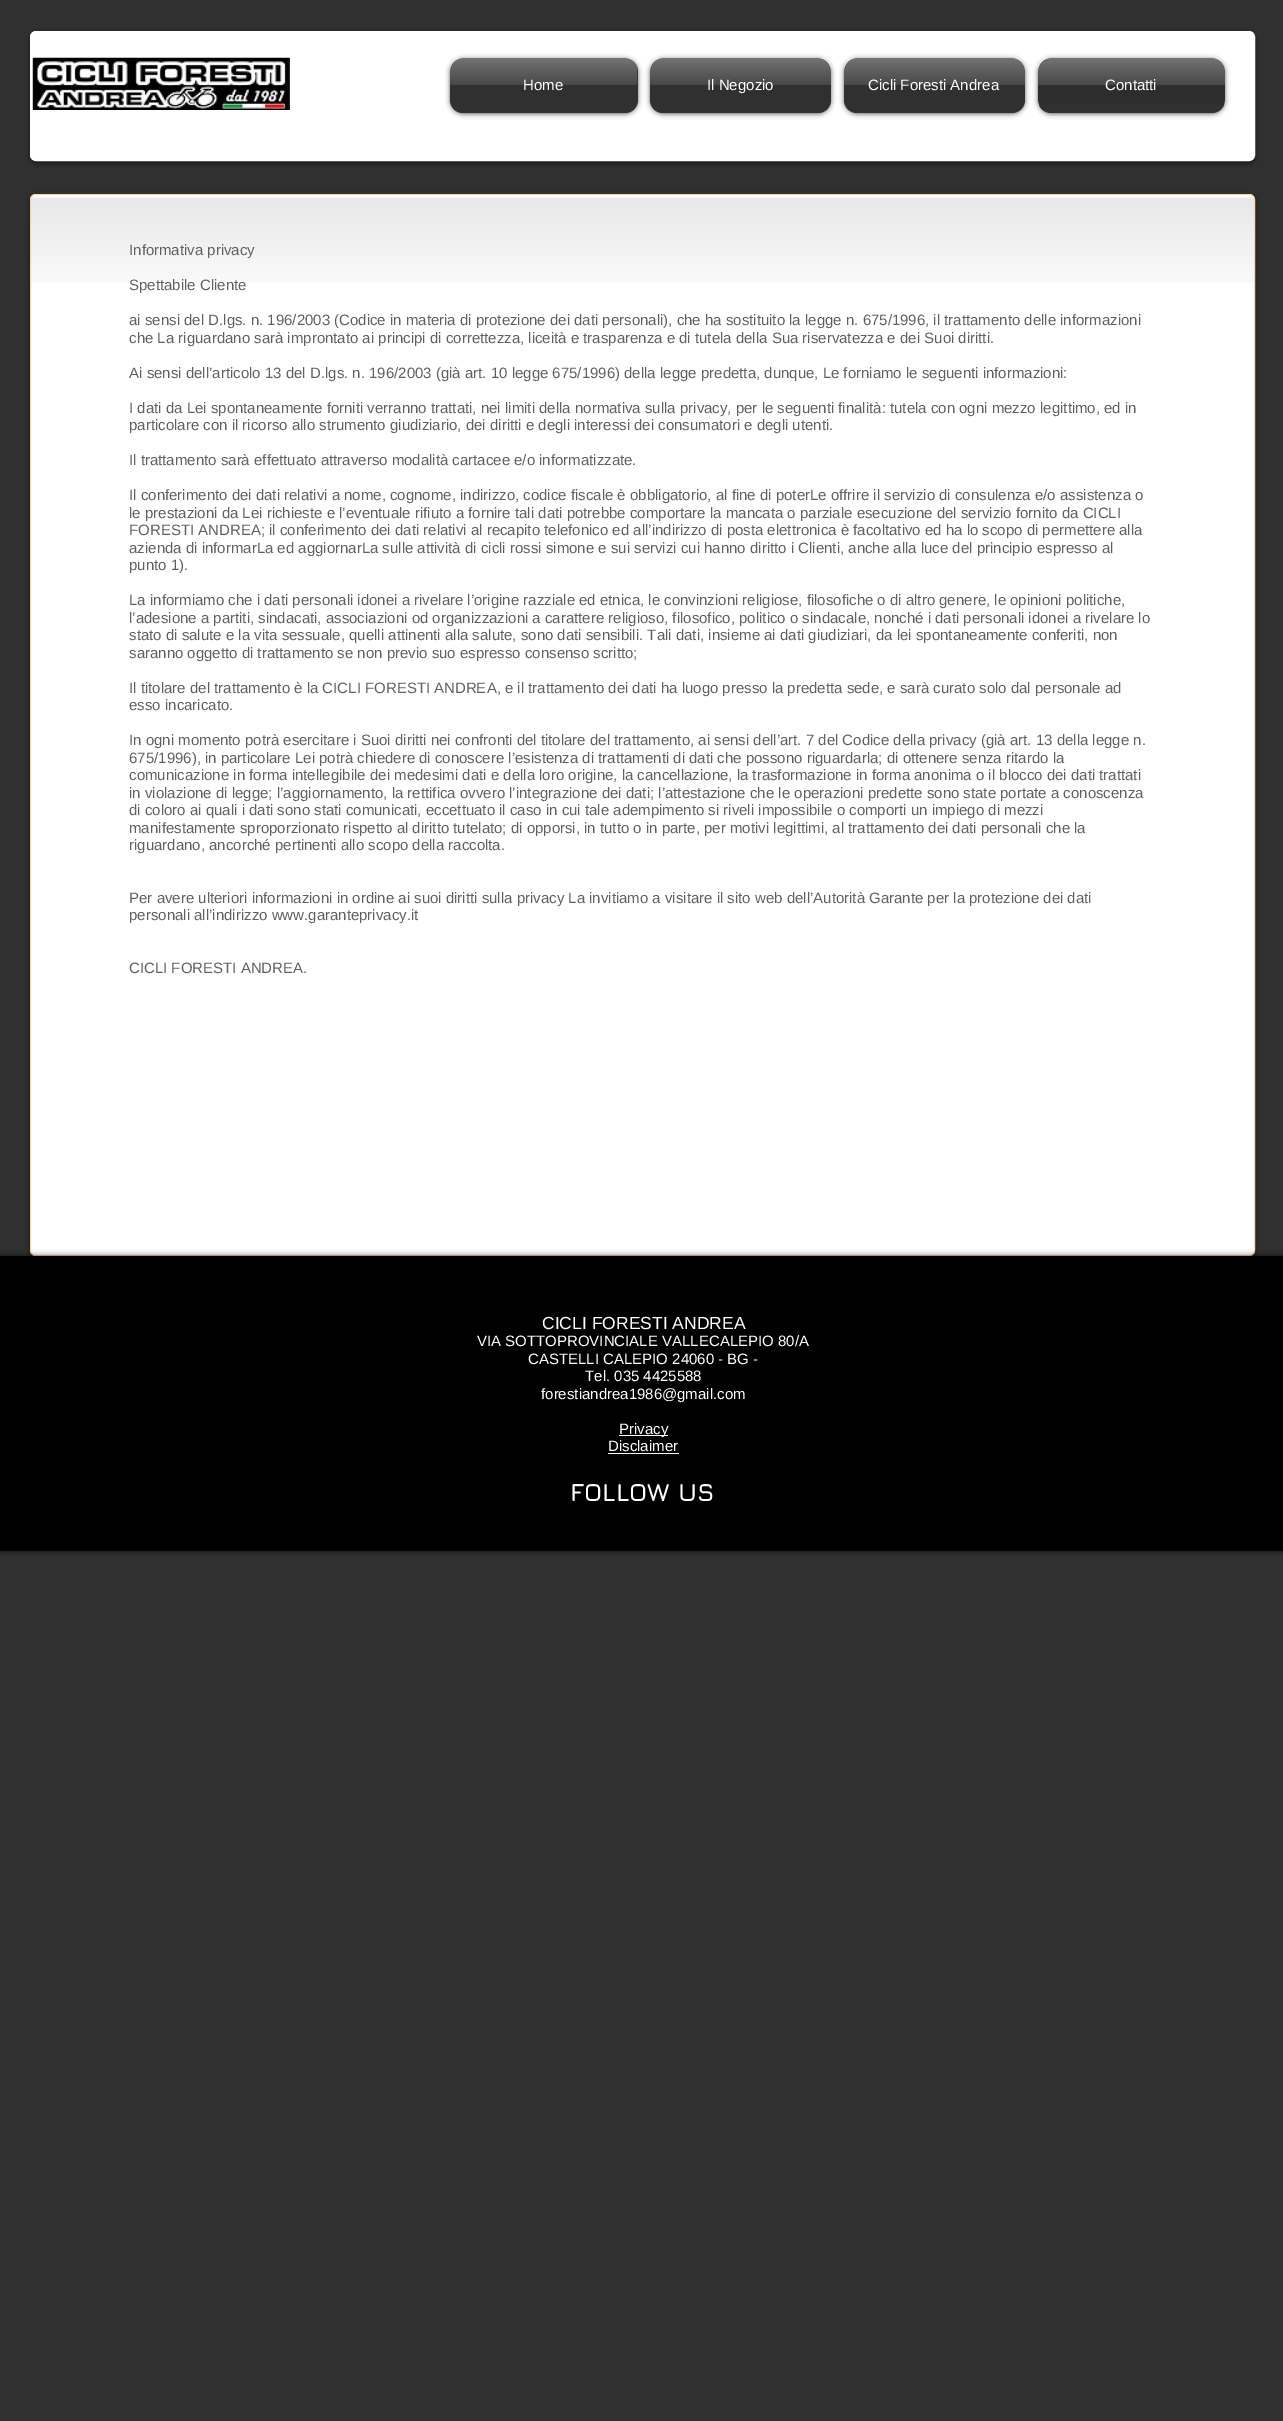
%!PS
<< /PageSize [1283 2421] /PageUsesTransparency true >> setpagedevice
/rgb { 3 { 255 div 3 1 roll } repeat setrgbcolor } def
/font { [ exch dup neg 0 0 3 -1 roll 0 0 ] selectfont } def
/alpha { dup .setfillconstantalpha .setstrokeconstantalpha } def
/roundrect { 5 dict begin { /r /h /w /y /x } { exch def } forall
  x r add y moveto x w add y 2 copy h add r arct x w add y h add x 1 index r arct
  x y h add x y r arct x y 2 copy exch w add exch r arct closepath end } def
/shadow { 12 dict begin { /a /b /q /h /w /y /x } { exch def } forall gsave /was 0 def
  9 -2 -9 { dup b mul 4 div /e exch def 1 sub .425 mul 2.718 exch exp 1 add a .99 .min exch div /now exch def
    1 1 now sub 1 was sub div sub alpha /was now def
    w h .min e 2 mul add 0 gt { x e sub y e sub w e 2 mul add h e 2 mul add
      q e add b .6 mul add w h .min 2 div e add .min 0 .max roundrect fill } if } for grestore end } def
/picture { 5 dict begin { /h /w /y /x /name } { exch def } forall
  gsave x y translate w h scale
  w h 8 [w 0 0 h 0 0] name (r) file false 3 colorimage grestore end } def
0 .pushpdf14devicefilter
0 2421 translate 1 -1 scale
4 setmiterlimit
48 48 48 rgb
0 0 1283 2421 rectfill
0 0 0 rgb
30 33 1225 130 6 2.5 0.6 shadow
255 255 255 rgb
31.5 32.5 1222 127 4.5 roundrect gsave fill grestore
3 setlinewidth
stroke
(img/1.rgb) 32 57 258 53 picture
0 0 0 rgb
450 59 188 55 13 2.5 0.6 shadow
48 48 48 rgb
450 58 188 55 13 roundrect fill
(img/2.rgb) 450 58 188 27 picture
0 0 0 rgb
650 59 181 55 13 2.5 0.6 shadow
48 48 48 rgb
650 58 181 55 13 roundrect fill
(img/3.rgb) 650 58 181 27 picture
0 0 0 rgb
844 59 181 55 13 2.5 0.6 shadow
48 48 48 rgb
844 58 181 55 13 roundrect fill
(img/4.rgb) 844 58 181 27 picture
0 0 0 rgb
1038 59 187 55 13 2.5 0.6 shadow
48 48 48 rgb
1038 58 187 55 13 roundrect fill
(img/5.rgb) 1038 58 187 47 picture
0 0 0 rgb
30 195 1225 1063 6 2.5 0.6 shadow
48 48 48 rgb
31 192 1223 2 rectfill
255 255 255 rgb
30 194 1225 1062 6 roundrect fill
(img/6.rgb) 30 197 1225 86 picture
255 214 170 rgb
1 setlinewidth
30.5 194.5 1224 1061 5.5 roundrect stroke
0 0 0 rgb
0 1256 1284 295 0 3 0.7 shadow
[
  [0 1256 1283 295 0 0 0]
  [619 1435 49 1 255 255 255]
  [608 1453 71 1 255 255 255]
] { aload pop rgb rectfill } forall
/LiberationSans-Regular 15 font
[
  [(Home) 523 90]
  [(Il Negozio) 707 90]
  [(Cicli Foresti Andrea) 868 90]
  [(Contatti) 1105 90]
] { aload pop moveto show } forall
97 96 96 rgb
[
  [(Informativa privacy) 129 255]
  [(Spettabile Cliente) 129 290]
  [(ai sensi del D.lgs. n. 196/2003 \(Codice in materia di protezione dei dati personali\), che ha sostituito la legge n. 675/1996, il trattamento delle informazioni) 129 325]
  [(che La riguardano sarà improntato ai principi di correttezza, liceità e trasparenza e di tutela della Sua riservatezza e dei Suoi diritti.) 129 343]
  [(Ai sensi dell’articolo 13 del D.lgs. n. 196/2003 \(già art. 10 legge 675/1996\) della legge predetta, dunque, Le forniamo le seguenti informazioni:) 129 378]
  [(I dati da Lei spontaneamente forniti verranno trattati, nei limiti della normativa sulla privacy, per le seguenti finalità: tutela con ogni mezzo legittimo, ed in) 129 413]
  [(particolare con il ricorso allo strumento giudiziario, dei diritti e degli interessi dei consumatori e degli utenti.) 129 430]
  [(Il trattamento sarà effettuato attraverso modalità cartacee e/o informatizzate.) 129 465]
  [(Il conferimento dei dati relativi a nome, cognome, indirizzo, codice fiscale è obbligatorio, al fine di poterLe offrire il servizio di consulenza e/o assistenza o) 129 500]
  [(le prestazioni da Lei richieste e l’eventuale rifiuto a fornire tali dati potrebbe comportare la mancata o parziale esecuzione del servizio fornito da CICLI) 129 518]
  [(FORESTI ANDREA; il conferimento dei dati relativi al recapito telefonico ed all’indirizzo di posta elettronica è facoltativo ed ha lo scopo di permettere alla) 129 535]
  [(azienda di informarLa ed aggiornarLa sulle attività di cicli rossi simone e sui servizi cui hanno diritto i Clienti, anche alla luce del principio espresso al) 129 553]
  [(punto 1\).) 129 570]
  [(La informiamo che i dati personali idonei a rivelare l’origine razziale ed etnica, le convinzioni religiose, filosofiche o di altro genere, le opinioni politiche,) 129 605]
  [(l’adesione a partiti, sindacati, associazioni od organizzazioni a carattere religioso, filosofico, politico o sindacale, nonché i dati personali idonei a rivelare lo) 129 623]
  [(stato di salute e la vita sessuale, quelli attinenti alla salute, sono dati sensibili. Tali dati, insieme ai dati giudiziari, da lei spontaneamente conferiti, non) 129 640]
  [(saranno oggetto di trattamento se non previo suo espresso consenso scritto;) 129 658]
  [(Il titolare del trattamento è la CICLI FORESTI ANDREA, e il trattamento dei dati ha luogo presso la predetta sede, e sarà curato solo dal personale ad) 129 693]
  [(esso incaricato.) 129 710]
  [(In ogni momento potrà esercitare i Suoi diritti nei confronti del titolare del trattamento, ai sensi dell’art. 7 del Codice della privacy \(già art. 13 della legge n.) 129 745]
  [(675/1996\), in particolare Lei potrà chiedere di conoscere l’esistenza di trattamenti di dati che possono riguardarla; di ottenere senza ritardo la) 129 763]
  [(comunicazione in forma intellegibile dei medesimi dati e della loro origine, la cancellazione, la trasformazione in forma anonima o il blocco dei dati trattati) 129 780]
  [(in violazione di legge; l’aggiornamento, la rettifica ovvero l’integrazione dei dati; l’attestazione che le operazioni predette sono state portate a conoscenza) 129 798]
  [(di coloro ai quali i dati sono stati comunicati, eccettuato il caso in cui tale adempimento si riveli impossibile o comporti un impiego di mezzi) 129 815]
  [(manifestamente sproporzionato rispetto al diritto tutelato; di opporsi, in tutto o in parte, per motivi legittimi, al trattamento dei dati personali che la) 129 833]
  [(riguardano, ancorché pertinenti allo scopo della raccolta.) 129 850]
  [(Per avere ulteriori informazioni in ordine ai suoi diritti sulla privacy La invitiamo a visitare il sito web dell’Autorità Garante per la protezione dei dati) 129 903]
  [(personali all’indirizzo www.garanteprivacy.it) 129 920]
  [(CICLI FORESTI ANDREA.) 129 973]
] { aload pop moveto show } forall
/LiberationSans-Regular 17.5 font
255 255 255 rgb
542 1329 moveto (CICLI FORESTI ANDREA) show
/LiberationSans-Regular 15 font
[
  [(VIA SOTTOPROVINCIALE VALLECALEPIO 80/A) 477 1346]
  [(CASTELLI CALEPIO 24060 - BG -) 528 1364]
  [(Tel. 035 4425588) 585 1381]
  [(forestiandrea1986@gmail.com) 541 1399]
  [(Privacy) 619 1434]
  [(Disclaimer) 608 1451]
] { aload pop moveto show } forall
/Jura-Bold 25 font
570 1501 moveto (FOLLOW US) show
.poppdf14devicefilter showpage
